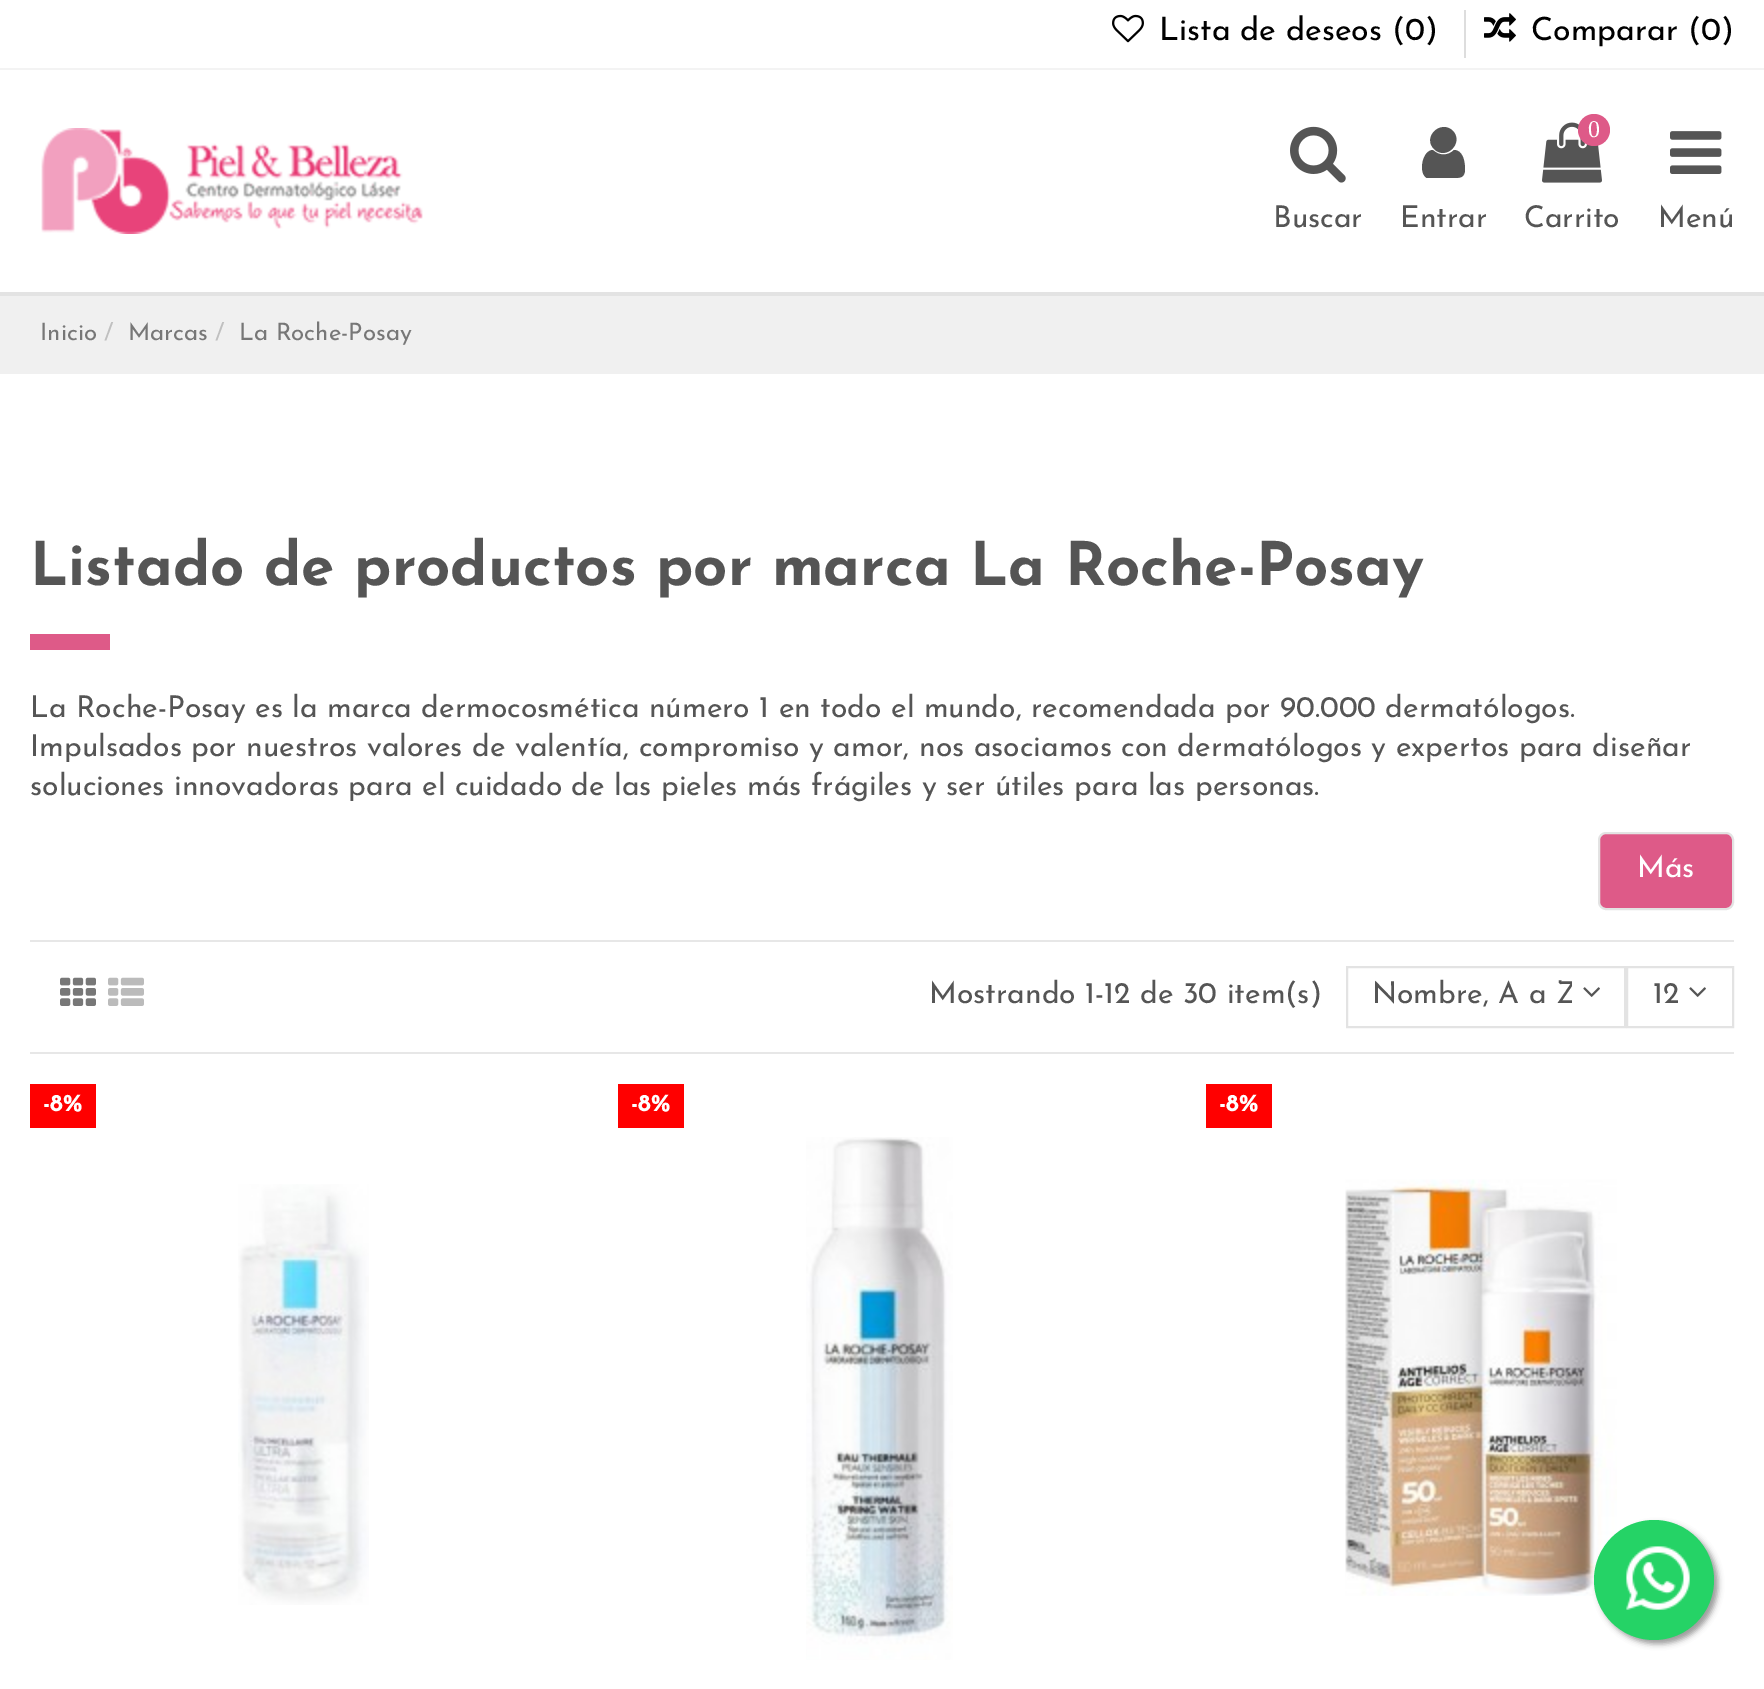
%!PS
<< /PageSize [1764 1689] /PageUsesTransparency true >> setpagedevice
/rgb { 3 { 255 div 3 1 roll } repeat setrgbcolor } def
/font { [ exch dup neg 0 0 3 -1 roll 0 0 ] selectfont } def
/alpha { dup .setfillconstantalpha .setstrokeconstantalpha } def
/circle { newpath 0 360 arc closepath } def
/roundrect { 5 dict begin { /r /h /w /y /x } { exch def } forall
  x r add y moveto x w add y 2 copy h add r arct x w add y h add x 1 index r arct
  x y h add x y r arct x y 2 copy exch w add exch r arct closepath end } def
/shadow { 12 dict begin { /a /b /q /h /w /y /x } { exch def } forall gsave /was 0 def
  9 -2 -9 { dup b mul 4 div /e exch def 1 sub .425 mul 2.718 exch exp 1 add a .99 .min exch div /now exch def
    1 1 now sub 1 was sub div sub alpha /was now def
    w h .min e 2 mul add 0 gt { x e sub y e sub w e 2 mul add h e 2 mul add
      q e add b .6 mul add w h .min 2 div e add .min 0 .max roundrect fill } if } for grestore end } def
/picture { 5 dict begin { /h /w /y /x /name } { exch def } forall
  gsave x y translate w h scale
  w h 8 [w 0 0 h 0 0] name (r) file false 3 colorimage grestore end } def
0 .pushpdf14devicefilter
0 1689 translate 1 -1 scale
4 setmiterlimit
255 255 255 rgb
0 0 1764 1689 rectfill
243 243 243 rgb
0 68 1764 2 rectfill
(img/1.rgb) 1112 14 32 29 picture
221 221 221 rgb
1464 10 2 48 rectfill
(img/2.rgb) 1484 13 32 29 picture
227 227 227 rgb
0 292 1764 4 rectfill
(img/3.rgb) 41 128 382 106 picture
(img/4.rgb) 1290 126 56 57 picture
85 85 85 rgb
1465 169 moveto 1465 178 1460 178 1453 178 curveto 1427 178 lineto 1418 174 1422 150 1433 150 curveto 1439 156 1448 156 1454 150 curveto 1463 150 1465 162 1465 169 curveto closepath 1453 131 moveto 1464 143 1446 161 1434 149 curveto 1422 137 1441 119 1453 131 curveto closepath fill
(img/5.rgb) 1542 122 60 61 picture
222 90 136 rgb
1594 130 16 circle fill
(img/6.rgb) 1670 131 52 43 picture
240 240 240 rgb
0 296 1764 78 rectfill
222 90 136 rgb
30 634 80 16 rectfill
1599 833 134 76 7 roundrect gsave fill grestore
227 227 227 rgb
2 setlinewidth
stroke
231 231 231 rgb
30 940 1704 2 rectfill
30 1052 1704 2 rectfill
(img/7.rgb) 60 977 36 29 picture
(img/8.rgb) 108 977 36 29 picture
227 227 227 rgb
1347 967 278 60 rectstroke
(img/9.rgb) 1583 987 17 10 picture
1627 967 106 60 rectstroke
(img/9.rgb) 1689 987 17 10 picture
255 0 0 rgb
30 1084 66 44 rectfill
(img/10.rgb) 238 1184 131 421 picture
618 1084 66 44 rectfill
(img/11.rgb) 806 1137 147 523 picture
1206 1084 66 44 rectfill
(img/12.rgb) 1345 1179 272 417 picture
153 153 153 rgb
1598 1524 120 120 60 3 1 shadow
37 211 102 rgb
1654 1580 60 circle fill
(img/13.rgb) 1626 1546 64 64 picture
/JosefinSans-Regular 32 font
0 0 0 rgb
1159 40 moveto (Lista de deseos \(0\)) show
1531 40 moveto (Comparar \(0\)) show
/JosefinSans-Regular 30 font
85 85 85 rgb
1273 227 moveto (Buscar) show
1400 227 moveto (Entrar) show
/LiberationSerif-Regular 24 font
255 255 255 rgb
1588 137 moveto (0) show
/JosefinSans-Regular 30 font
85 85 85 rgb
1524 227 moveto (Carrito) show
1658 227 moveto (Menú) show
/JosefinSans-Regular 24 font
119 119 119 rgb
40 340 moveto (Inicio) show
192 192 192 rgb
104 340 moveto (/) show
119 119 119 rgb
128 340 moveto (Marcas) show
192 192 192 rgb
215 340 moveto (/) show
119 119 119 rgb
239 340 moveto (La Roche-Posay) show
/JosefinSans-Bold 60 font
85 85 85 rgb
30 585 moveto (Listado de productos por marca La Roche-Posay) show
/JosefinSans-Regular 30 font
[
  [(La Roche-Posay es la marca dermocosmética número 1 en todo el mundo, recomendada por 90.000 dermatólogos.) 30 717]
  [(Impulsados por nuestros valores de valentía, compromiso y amor, nos asociamos con dermatólogos y expertos para diseñar) 30 756]
  [(soluciones innovadoras para el cuidado de las pieles más frágiles y ser útiles para las personas.) 30 795]
] { aload pop moveto show } forall
255 255 255 rgb
1637 877 moveto (Más) show
85 85 85 rgb
929 1003 moveto (Mostrando 1-12 de 30 item\(s\)) show
gsave
1372 974 200 46 rectclip
1372 1003 moveto (Nombre, A a Z) show
grestore
1653 1003 moveto (12) show
/JosefinSans-Bold 24 font
255 255 255 rgb
[
  [(-8%) 43 1111]
  [(-8%) 631 1111]
  [(-8%) 1219 1111]
] { aload pop moveto show } forall
.poppdf14devicefilter showpage
